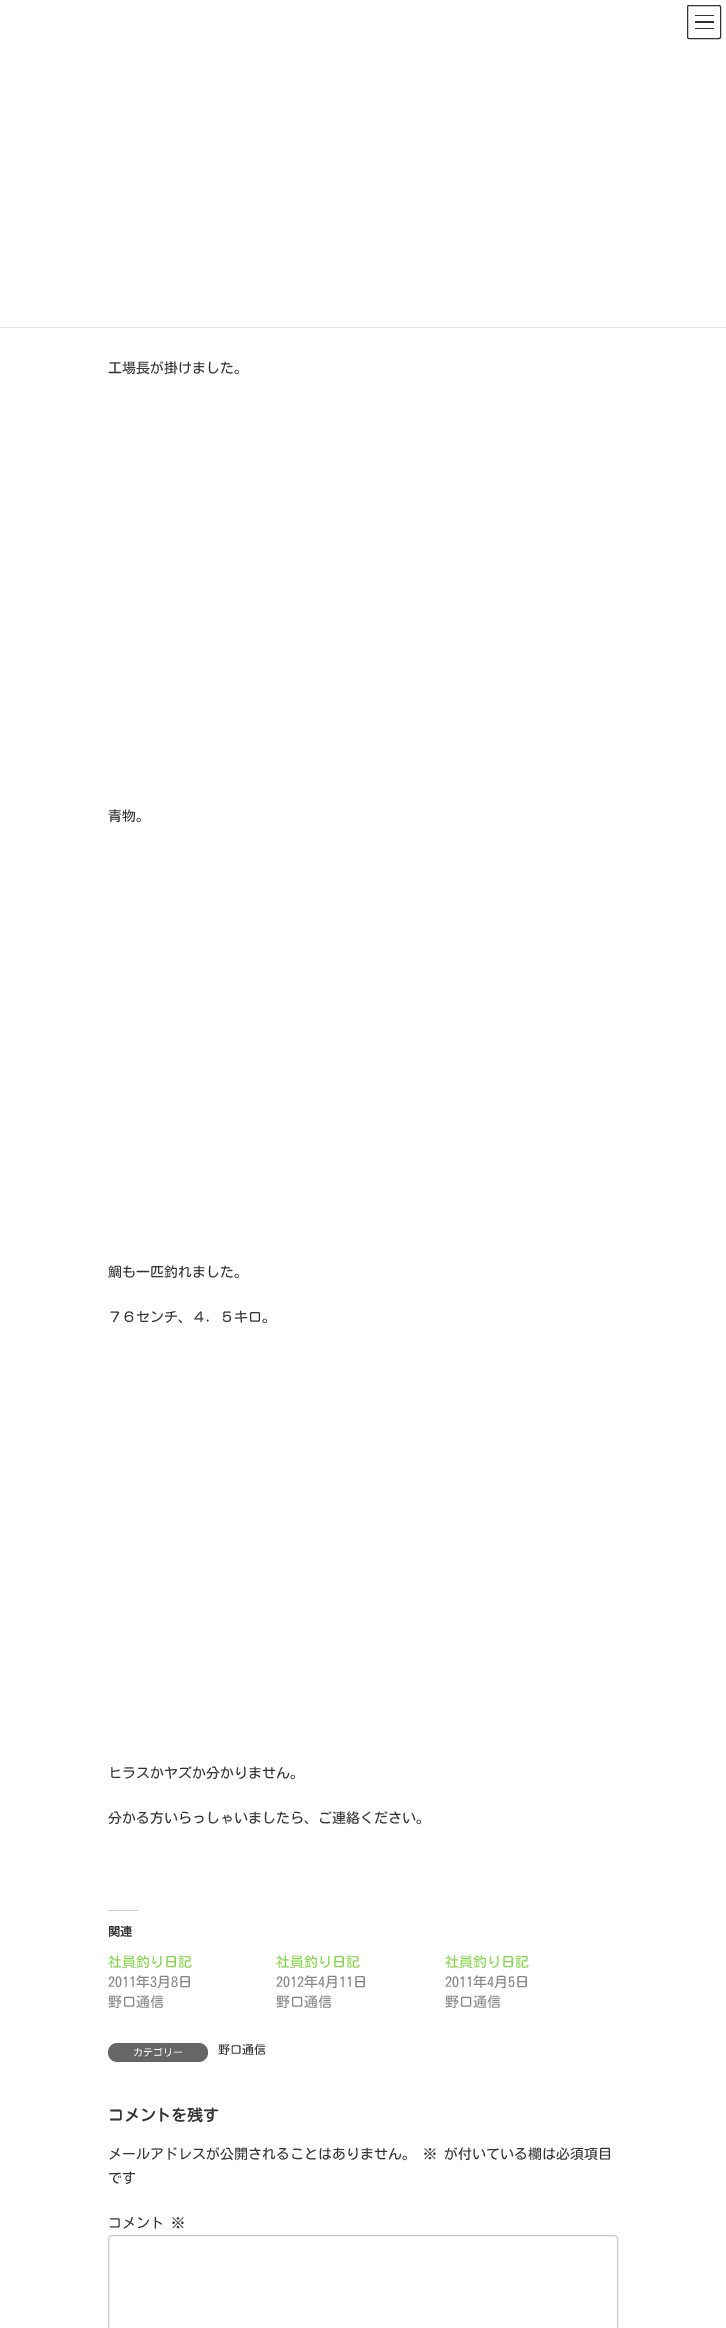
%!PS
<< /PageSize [726 2328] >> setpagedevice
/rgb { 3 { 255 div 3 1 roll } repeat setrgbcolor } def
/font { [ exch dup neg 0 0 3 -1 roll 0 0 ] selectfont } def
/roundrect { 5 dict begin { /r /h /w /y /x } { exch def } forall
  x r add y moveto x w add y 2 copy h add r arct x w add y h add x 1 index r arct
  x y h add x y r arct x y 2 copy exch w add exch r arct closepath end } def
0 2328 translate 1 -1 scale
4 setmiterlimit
255 255 255 rgb
0 0 726 2328 rectfill
[
  [695 15 19 1 51 51 51]
  [695 21 19 2 51 51 51]
  [695 28 19 1 51 51 51]
] { aload pop rgb rectfill } forall
687.5 5.5 33 33 1.5 roundrect stroke
229 229 229 rgb
0 327 726 1 rectfill
204 204 204 rgb
108 1910 30 1 rectfill
102 102 102 rgb
108 2043 100 19 9.5 roundrect fill
204 204 204 rgb
108.5 2235.5 509 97 3.5 roundrect stroke
/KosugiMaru-Regular 14 font
51 51 51 rgb
[
  [(工場長が掛けました。) 108 373]
  [(青物。) 108 821]
  [(鯛も一匹釣れました。) 108 1277]
  [(７６センチ、４．５キロ。) 108 1322]
  [(ヒラスかヤズか分かりません。) 108 1778]
  [(分かる方いらっしゃいましたら、ご連絡ください。) 108 1823]
] { aload pop moveto show } forall
/KosugiMaru-Bold 12 font
108 1936 moveto (関連) show
/KosugiMaru-Regular 14 font
129 215 66 rgb
108 1967 moveto (社員釣り日記) show
133 133 133 rgb
108 1987 moveto (2011年3月8日) show
108 2007 moveto (野口通信) show
129 215 66 rgb
276 1967 moveto (社員釣り日記) show
133 133 133 rgb
276 1987 moveto (2012年4月11日) show
276 2007 moveto (野口通信) show
129 215 66 rgb
445 1967 moveto (社員釣り日記) show
133 133 133 rgb
445 1987 moveto (2011年4月5日) show
445 2007 moveto (野口通信) show
/KosugiMaru-Regular 10 font
255 255 255 rgb
133 2056 moveto (カテゴリー) show
/KosugiMaru-Regular 12 font
51 51 51 rgb
218 2054 moveto (野口通信) show
/KosugiMaru-Bold 15.75 font
108 2121 moveto (コメントを残す) show
/KosugiMaru-Regular 14 font
[
  [(メールアドレスが公開されることはありません。 ※ が付いている欄は必須項目) 108 2159]
  [(です) 108 2183]
  [(コメント ※) 108 2228]
] { aload pop moveto show } forall
showpage
